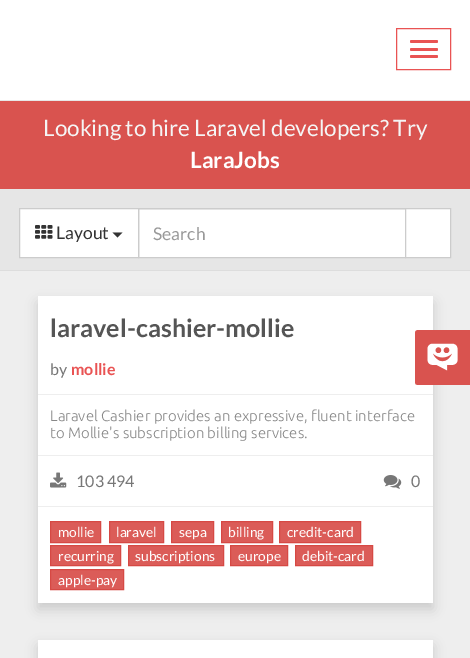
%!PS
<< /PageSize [470 658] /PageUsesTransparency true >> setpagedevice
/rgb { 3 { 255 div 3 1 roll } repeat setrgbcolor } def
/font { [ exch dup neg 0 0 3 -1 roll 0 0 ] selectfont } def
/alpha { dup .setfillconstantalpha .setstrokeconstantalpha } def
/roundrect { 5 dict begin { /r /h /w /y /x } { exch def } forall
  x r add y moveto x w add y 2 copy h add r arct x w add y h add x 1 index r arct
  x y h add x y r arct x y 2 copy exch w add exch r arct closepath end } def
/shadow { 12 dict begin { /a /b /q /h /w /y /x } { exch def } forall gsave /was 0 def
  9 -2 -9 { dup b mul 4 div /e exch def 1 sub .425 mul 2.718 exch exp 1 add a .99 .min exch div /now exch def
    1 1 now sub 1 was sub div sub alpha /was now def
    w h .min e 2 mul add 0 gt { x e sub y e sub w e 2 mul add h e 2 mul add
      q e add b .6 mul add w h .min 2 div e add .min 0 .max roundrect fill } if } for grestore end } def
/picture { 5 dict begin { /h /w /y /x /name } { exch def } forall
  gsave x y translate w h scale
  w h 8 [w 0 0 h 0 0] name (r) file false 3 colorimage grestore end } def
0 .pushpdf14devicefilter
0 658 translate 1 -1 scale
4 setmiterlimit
217 83 79 rgb
0 0 470 658 rectfill
255 255 255 rgb
0 0 470 100 rectfill
231 231 231 rgb
0 100 470 1 rectfill
233 83 83 rgb
396.5 28.5 54 41 rectstroke
410 40 28 3 1.5 roundrect fill
410 48 28 3 1.5 roundrect fill
410 55 28 3 1.5 roundrect fill
[
  [0 271 470 387 238 238 238]
  [0 189 470 81 230 230 230]
  [0 270 470 1 221 221 221]
  [139 210 266 47 255 255 255]
  [139 209 266 1 236 236 236]
] { aload pop rgb rectfill } forall
204 204 204 rgb
138.5 208.5 267 49 rectstroke
255 255 255 rgb
19.5 208.5 moveto 138.5 208.5 lineto 138.5 257.5 lineto 19.5 257.5 lineto closepath gsave fill grestore
204 204 204 rgb
stroke
(img/1.rgb) 35 225 18 14 picture
51 51 51 rgb
112.5 232.5 moveto 122.5 232.5 lineto 117.5 237.5 lineto closepath fill
255 255 255 rgb
405.5 208.5 moveto 450.5 208.5 lineto 450.5 257.5 lineto 405.5 257.5 lineto closepath gsave fill grestore
204 204 204 rgb
stroke
0 0 0 rgb
38 303 395 306 0 6 0.15 shadow
[
  [38 296 395 307 255 255 255]
  [38 394 395 1 238 238 238]
  [38 455 395 1 238 238 238]
] { aload pop rgb rectfill } forall
(img/2.rgb) 50 472 17 16 picture
(img/3.rgb) 383 475 19 14 picture
38 506 395 1 rectfill
219 92 88 rgb
50.5 521.5 moveto 100.5 521.5 lineto 100.5 542.5 lineto 50.5 542.5 lineto closepath gsave fill grestore
214 73 68 rgb
stroke
219 92 88 rgb
109.5 521.5 moveto 163.5 521.5 lineto 163.5 542.5 lineto 109.5 542.5 lineto closepath gsave fill grestore
214 73 68 rgb
stroke
219 92 88 rgb
171.5 521.5 moveto 213.5 521.5 lineto 213.5 542.5 lineto 171.5 542.5 lineto closepath gsave fill grestore
214 73 68 rgb
stroke
219 92 88 rgb
221.5 521.5 moveto 272.5 521.5 lineto 272.5 542.5 lineto 221.5 542.5 lineto closepath gsave fill grestore
214 73 68 rgb
stroke
219 92 88 rgb
279.5 521.5 moveto 360.5 521.5 lineto 360.5 542.5 lineto 279.5 542.5 lineto closepath gsave fill grestore
214 73 68 rgb
stroke
219 92 88 rgb
50.5 545.5 moveto 120.5 545.5 lineto 120.5 565.5 lineto 50.5 565.5 lineto closepath gsave fill grestore
214 73 68 rgb
stroke
219 92 88 rgb
128.5 545.5 moveto 223.5 545.5 lineto 223.5 565.5 lineto 128.5 565.5 lineto closepath gsave fill grestore
214 73 68 rgb
stroke
219 92 88 rgb
230.5 545.5 moveto 287.5 545.5 lineto 287.5 565.5 lineto 230.5 565.5 lineto closepath gsave fill grestore
214 73 68 rgb
stroke
219 92 88 rgb
295.5 545.5 moveto 372.5 545.5 lineto 372.5 565.5 lineto 295.5 565.5 lineto closepath gsave fill grestore
214 73 68 rgb
stroke
219 92 88 rgb
50.5 569.5 moveto 123.5 569.5 lineto 123.5 589.5 lineto 50.5 589.5 lineto closepath gsave fill grestore
214 73 68 rgb
stroke
0 0 0 rgb
38 646 395 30 0 6 0.15 shadow
255 255 255 rgb
38 640 395 18 rectfill
(img/4.rgb) 415 330 55 55 picture
/Lato-Regular 22.5 font
245 245 245 rgb
43 136 moveto (Looking to hire Laravel developers? Try) show
/Lato-Bold 22.5 font
255 255 255 rgb
190 168 moveto (LaraJobs) show
/Lato-Regular 17.5 font
51 51 51 rgb
56 239 moveto (Layout) show
153 153 153 rgb
153 240 moveto (Search) show
/Lato-Bold 25 font
85 85 85 rgb
50 337 moveto (laravel-cashier-mollie) show
/Lato-Regular 16 font
119 119 119 rgb
50 375 moveto (by) show
/Lato-Bold 16 font
233 83 83 rgb
71 375 moveto (mollie) show
/Ubuntu-Light 15 font
136 136 136 rgb
50 421 moveto (Laravel Cashier provides an expressive, fluent interface) show
50 438 moveto (to Mollie's subscription billing services.) show
/Lato-Regular 16 font
119 119 119 rgb
76 487 moveto (103 494) show
411 487 moveto (0) show
/Lato-Regular 13.75 font
255 255 255 rgb
[
  [(mollie) 58 537]
  [(laravel) 116 537]
  [(sepa) 179 537]
  [(billing) 228 537]
  [(credit-card) 287 537]
  [(recurring) 58 561]
  [(subscriptions) 135 561]
  [(europe) 238 561]
  [(debit-card) 302 561]
  [(apple-pay) 58 585]
] { aload pop moveto show } forall
.poppdf14devicefilter showpage
